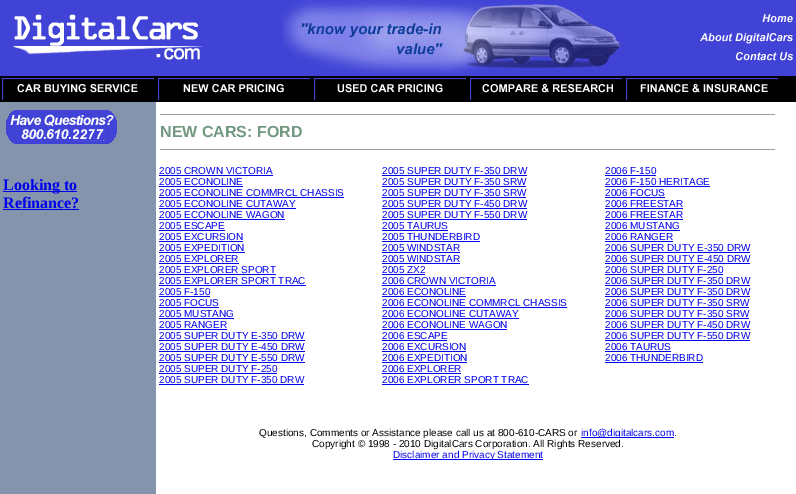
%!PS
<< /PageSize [796 494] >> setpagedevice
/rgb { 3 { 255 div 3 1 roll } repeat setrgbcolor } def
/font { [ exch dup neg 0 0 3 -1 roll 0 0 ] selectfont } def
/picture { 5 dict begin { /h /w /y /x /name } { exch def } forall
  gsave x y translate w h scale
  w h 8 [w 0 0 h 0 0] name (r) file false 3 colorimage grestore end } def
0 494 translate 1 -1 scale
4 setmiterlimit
255 255 255 rgb
0 0 796 494 rectfill
132 148 173 rgb
0 102 156 392 rectfill
64 67 213 rgb
0 0 796 76 rectfill
(img/1.rgb) 12 14 191 46 picture
(img/2.rgb) 282 0 340 75 picture
(img/3.rgb) 700 14 94 47 picture
0 0 0 rgb
0 76 796 26 rectfill
(img/4.rgb) 2 78 152 22 picture
(img/5.rgb) 158 78 152 22 picture
(img/6.rgb) 314 78 152 22 picture
(img/7.rgb) 470 78 152 22 picture
(img/8.rgb) 626 78 152 22 picture
(img/9.rgb) 6 110 111 34 picture
[
  [3 191 74 1 0 0 238]
  [3 209 76 1 0 0 238]
  [160 114 616 1 159 159 159]
  [775 114 1 1 238 238 238]
  [160 149 616 1 159 159 159]
  [775 149 1 1 238 238 238]
  [159 175 114 1 0 0 238]
  [159 186 84 1 0 0 238]
  [159 197 185 1 0 0 238]
  [159 208 137 1 0 0 238]
  [159 219 126 1 0 0 238]
  [159 230 66 1 0 0 238]
  [159 241 84 1 0 0 238]
  [159 252 86 1 0 0 238]
  [159 263 80 1 0 0 238]
  [159 274 117 1 0 0 238]
  [159 285 147 1 0 0 238]
  [159 296 51 1 0 0 238]
  [159 307 60 1 0 0 238]
  [159 318 75 1 0 0 238]
  [159 329 68 1 0 0 238]
  [159 340 146 1 0 0 238]
  [159 351 146 1 0 0 238]
  [159 362 146 1 0 0 238]
  [159 373 118 1 0 0 238]
  [159 384 145 1 0 0 238]
  [382 175 145 1 0 0 238]
  [382 186 144 1 0 0 238]
  [382 197 144 1 0 0 238]
  [382 208 145 1 0 0 238]
  [382 219 145 1 0 0 238]
  [382 230 66 1 0 0 238]
  [382 241 98 1 0 0 238]
  [382 252 78 1 0 0 238]
  [382 263 78 1 0 0 238]
  [382 274 43 1 0 0 238]
  [382 285 114 1 0 0 238]
  [382 296 84 1 0 0 238]
  [382 307 185 1 0 0 238]
  [382 318 137 1 0 0 238]
  [382 329 125 1 0 0 238]
  [382 340 65 1 0 0 238]
  [382 351 84 1 0 0 238]
  [382 362 85 1 0 0 238]
  [382 373 79 1 0 0 238]
  [382 384 147 1 0 0 238]
  [605 175 51 1 0 0 238]
  [605 186 105 1 0 0 238]
  [605 197 60 1 0 0 238]
  [605 208 78 1 0 0 238]
  [605 219 78 1 0 0 238]
  [605 230 75 1 0 0 238]
  [605 241 68 1 0 0 238]
  [605 252 145 1 0 0 238]
  [605 263 145 1 0 0 238]
  [605 274 118 1 0 0 238]
  [605 285 145 1 0 0 238]
  [605 296 145 1 0 0 238]
  [605 307 144 1 0 0 238]
  [605 318 144 1 0 0 238]
  [605 329 145 1 0 0 238]
  [605 340 145 1 0 0 238]
  [605 351 66 1 0 0 238]
  [605 362 98 1 0 0 238]
  [581 437 93 1 0 0 238]
  [393 459 150 1 0 0 238]
] { aload pop rgb rectfill } forall
/LiberationSerif-Bold 16 font
3 190 moveto (Looking to) show
3 208 moveto (Refinance?) show
/LiberationSans-Bold 16 font
114 152 129 rgb
160 137 moveto (NEW CARS: FORD) show
/LiberationSans-Regular 10 font
0 0 238 rgb
[
  [(2005 CROWN VICTORIA) 159 174]
  [(2005 ECONOLINE) 159 185]
  [(2005 ECONOLINE COMMRCL CHASSIS) 159 196]
  [(2005 ECONOLINE CUTAWAY) 159 207]
  [(2005 ECONOLINE WAGON) 159 218]
  [(2005 ESCAPE) 159 229]
  [(2005 EXCURSION) 159 240]
  [(2005 EXPEDITION) 159 251]
  [(2005 EXPLORER) 159 262]
  [(2005 EXPLORER SPORT) 159 273]
  [(2005 EXPLORER SPORT TRAC) 159 284]
  [(2005 F-150) 159 295]
  [(2005 FOCUS) 159 306]
  [(2005 MUSTANG) 159 317]
  [(2005 RANGER) 159 328]
  [(2005 SUPER DUTY E-350 DRW) 159 339]
  [(2005 SUPER DUTY E-450 DRW) 159 350]
  [(2005 SUPER DUTY E-550 DRW) 159 361]
  [(2005 SUPER DUTY F-250) 159 372]
  [(2005 SUPER DUTY F-350 DRW) 159 383]
  [(2005 SUPER DUTY F-350 DRW) 382 174]
  [(2005 SUPER DUTY F-350 SRW) 382 185]
  [(2005 SUPER DUTY F-350 SRW) 382 196]
  [(2005 SUPER DUTY F-450 DRW) 382 207]
  [(2005 SUPER DUTY F-550 DRW) 382 218]
  [(2005 TAURUS) 382 229]
  [(2005 THUNDERBIRD) 382 240]
  [(2005 WINDSTAR) 382 251]
  [(2005 WINDSTAR) 382 262]
  [(2005 ZX2) 382 273]
  [(2006 CROWN VICTORIA) 382 284]
  [(2006 ECONOLINE) 382 295]
  [(2006 ECONOLINE COMMRCL CHASSIS) 382 306]
  [(2006 ECONOLINE CUTAWAY) 382 317]
  [(2006 ECONOLINE WAGON) 382 328]
  [(2006 ESCAPE) 382 339]
  [(2006 EXCURSION) 382 350]
  [(2006 EXPEDITION) 382 361]
  [(2006 EXPLORER) 382 372]
  [(2006 EXPLORER SPORT TRAC) 382 383]
  [(2006 F-150) 605 174]
  [(2006 F-150 HERITAGE) 605 185]
  [(2006 FOCUS) 605 196]
  [(2006 FREESTAR) 605 207]
  [(2006 FREESTAR) 605 218]
  [(2006 MUSTANG) 605 229]
  [(2006 RANGER) 605 240]
  [(2006 SUPER DUTY E-350 DRW) 605 251]
  [(2006 SUPER DUTY E-450 DRW) 605 262]
  [(2006 SUPER DUTY F-250) 605 273]
  [(2006 SUPER DUTY F-350 DRW) 605 284]
  [(2006 SUPER DUTY F-350 DRW) 605 295]
  [(2006 SUPER DUTY F-350 SRW) 605 306]
  [(2006 SUPER DUTY F-350 SRW) 605 317]
  [(2006 SUPER DUTY F-450 DRW) 605 328]
  [(2006 SUPER DUTY F-550 DRW) 605 339]
  [(2006 TAURUS) 605 350]
  [(2006 THUNDERBIRD) 605 361]
] { aload pop moveto show } forall
0 0 0 rgb
259 436 moveto (Questions, Comments or Assistance please call us at 800-610-CARS or) show
0 0 238 rgb
581 436 moveto (info@digitalcars.com) show
0 0 0 rgb
674 436 moveto (.) show
312 447 moveto (Copyright © 1998 - 2010 DigitalCars Corporation. All Rights Reserved.) show
0 0 238 rgb
393 458 moveto (Disclaimer and Privacy Statement) show
showpage
